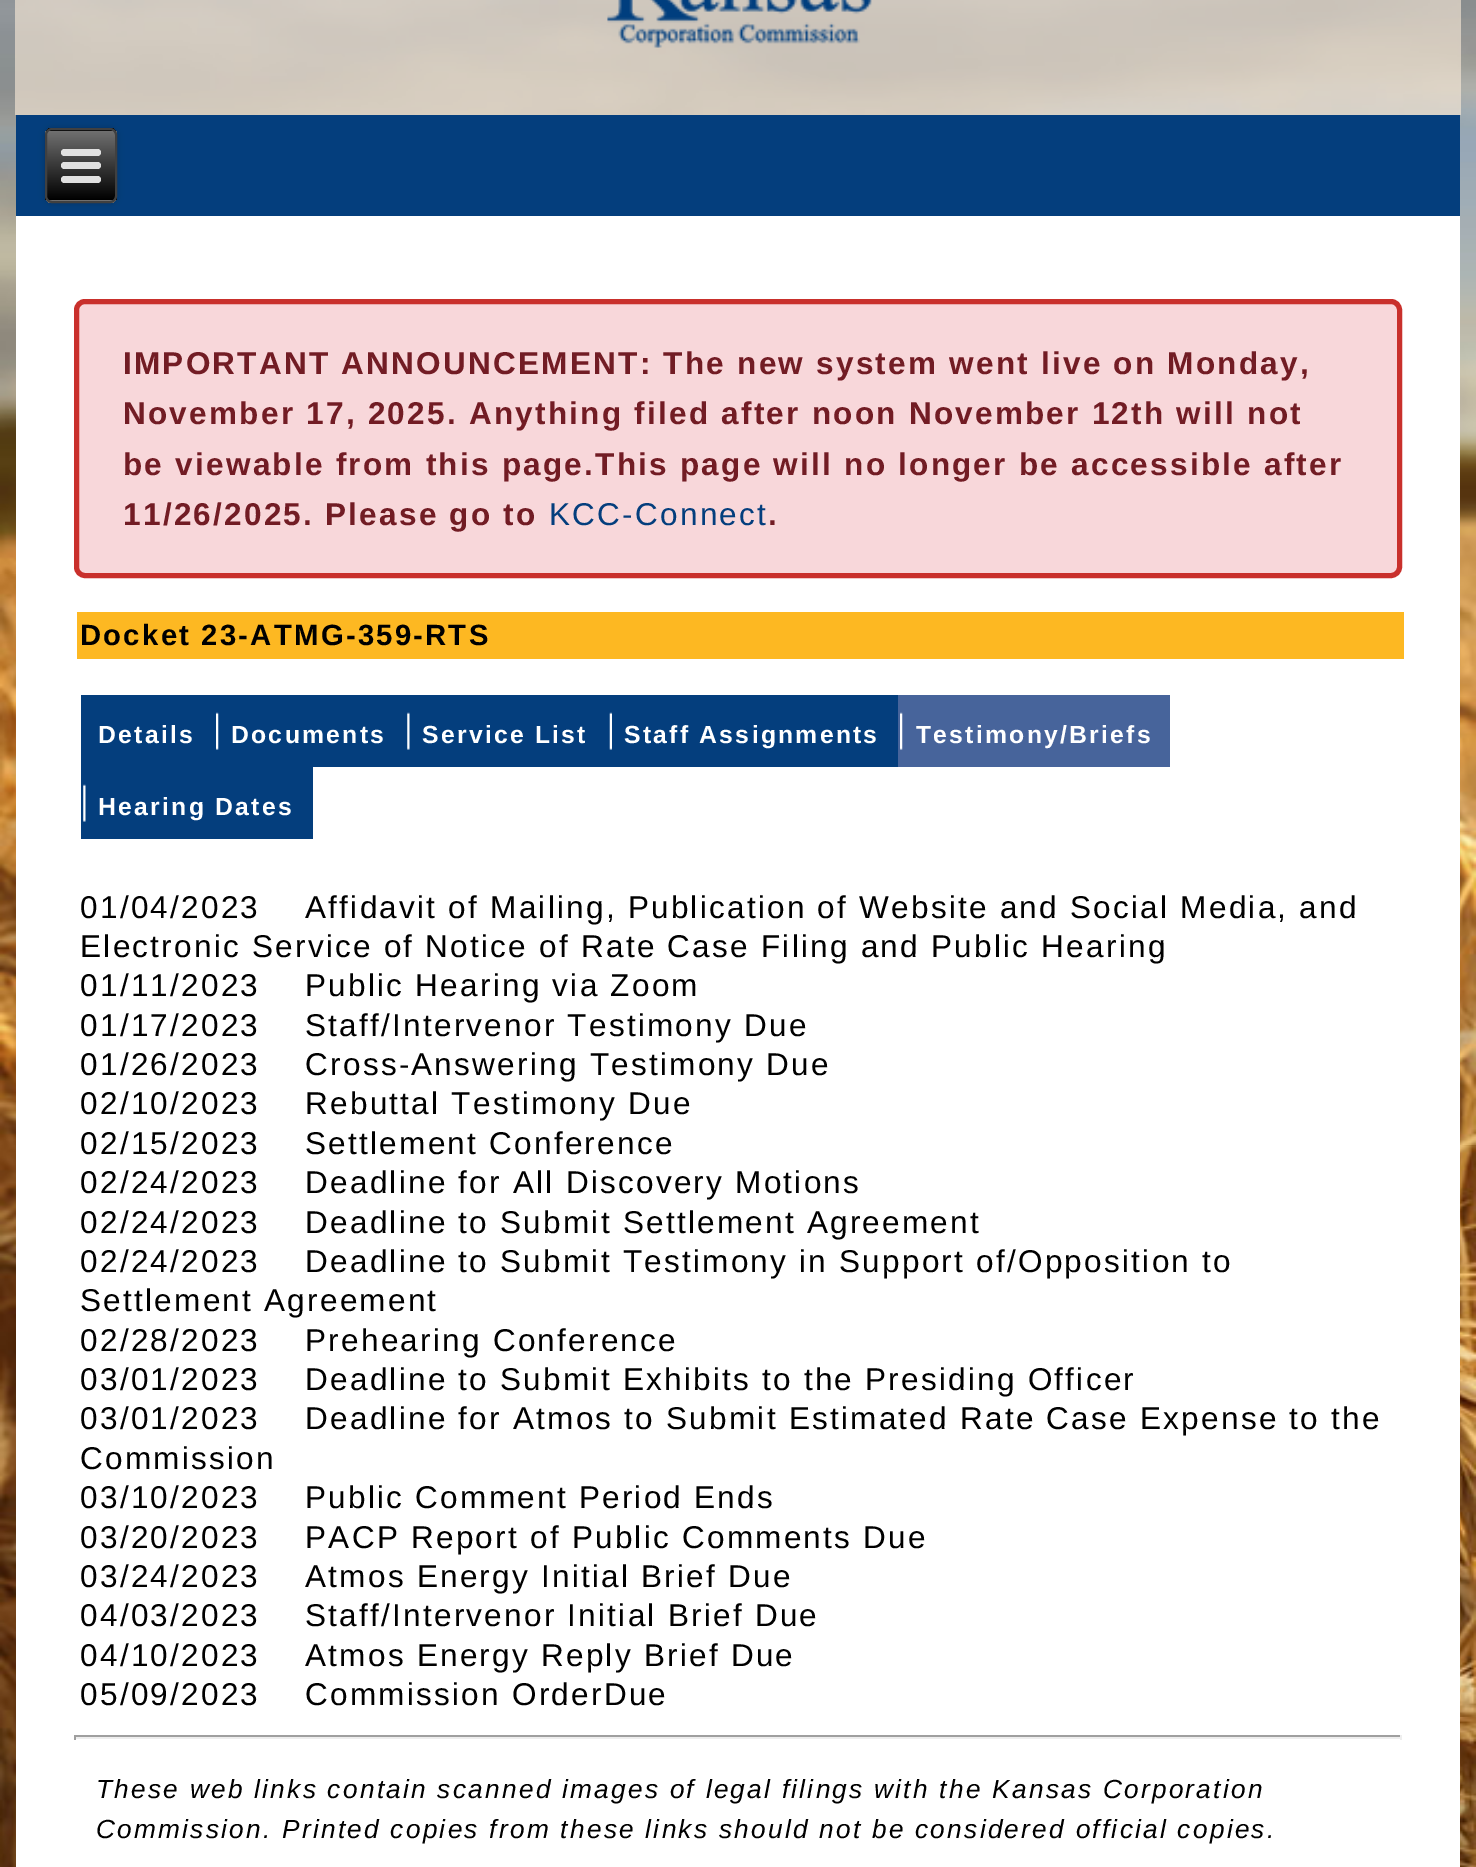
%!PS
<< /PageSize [1476 1867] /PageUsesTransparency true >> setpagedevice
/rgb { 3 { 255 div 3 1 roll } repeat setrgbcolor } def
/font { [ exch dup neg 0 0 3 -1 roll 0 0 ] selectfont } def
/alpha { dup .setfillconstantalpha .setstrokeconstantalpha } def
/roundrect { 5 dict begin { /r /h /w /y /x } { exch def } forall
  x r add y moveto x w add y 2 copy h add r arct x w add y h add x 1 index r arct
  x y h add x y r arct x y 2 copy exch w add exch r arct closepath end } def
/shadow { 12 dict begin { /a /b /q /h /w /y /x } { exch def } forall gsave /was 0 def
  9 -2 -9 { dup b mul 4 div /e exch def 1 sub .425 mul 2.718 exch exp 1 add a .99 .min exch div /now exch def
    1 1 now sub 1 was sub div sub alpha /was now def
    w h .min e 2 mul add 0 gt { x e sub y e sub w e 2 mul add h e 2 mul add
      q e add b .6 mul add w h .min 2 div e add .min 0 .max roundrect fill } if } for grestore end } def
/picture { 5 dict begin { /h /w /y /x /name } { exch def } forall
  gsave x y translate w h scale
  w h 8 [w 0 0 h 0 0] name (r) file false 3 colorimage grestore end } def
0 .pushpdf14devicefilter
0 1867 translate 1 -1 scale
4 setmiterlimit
255 255 255 rgb
0 0 1476 1867 rectfill
(img/1.rgb) 0 0 1476 1867 picture
0.6 alpha
253 237 218 rgb
15 0 1446 115 rectfill
1 alpha
(img/2.rgb) 607 0 265 48 picture
255 255 255 rgb
16 216 1444 1651 rectfill
4 62 125 rgb
16 115 1444 101 rectfill
0 0 0 rgb
45 128 72 75 7 3.5 0.2 shadow
gsave
45 128 72 75 7 roundrect clip newpath
gsave 45 128 moveto 117 128 lineto 117 131 lineto 45 131 lineto closepath clip newpath
<< /ShadingType 2 /ColorSpace /DeviceRGB /Coords [81 61 81 131] /Extend [true true] /Function << /FunctionType 2 /Domain [0 1] /C0 [0.439 0.439 0.439] /C1 [0 0 0] /N 1 >> >> shfill grestore
gsave 45 131 moveto 117 131 lineto 117 200 lineto 45 200 lineto closepath clip newpath
<< /ShadingType 2 /ColorSpace /DeviceRGB /Coords [81 131 81 200] /Extend [true true] /Function << /FunctionType 2 /Domain [0 1] /C0 [0.439 0.439 0.439] /C1 [0 0 0] /N 1 >> >> shfill grestore
gsave 45 200 moveto 117 200 lineto 117 203 lineto 45 203 lineto closepath clip newpath
<< /ShadingType 2 /ColorSpace /DeviceRGB /Coords [81 200 81 270] /Extend [true true] /Function << /FunctionType 2 /Domain [0 1] /C0 [0.439 0.439 0.439] /C1 [0 0 0] /N 1 >> >> shfill grestore
grestore
64 64 64 rgb
2 setlinewidth
46 129 70 73 6 roundrect stroke
224 224 224 rgb
61 149 40 7 3.5 roundrect fill
61 162 40 7 3.5 roundrect fill
61 176 40 7 3.5 roundrect fill
248 215 218 rgb
76.5 301.5 1323 274 8.5 roundrect gsave fill grestore
201 48 44 rgb
5 setlinewidth
stroke
253 184 34 rgb
77 612 1327 47 rectfill
4 62 125 rgb
81 695 817 72 rectfill
(img/3.rgb) 216 712 3 38 picture
(img/4.rgb) 407 712 3 38 picture
(img/5.rgb) 609 712 3 38 picture
71 100 155 rgb
898 695 272 72 rectfill
(img/6.rgb) 900 712 3 38 picture
4 62 125 rgb
81 767 232 72 rectfill
(img/4.rgb) 83 784 3 38 picture
[
  [74 1735 1328 2 159 159 159]
  [1400 1735 2 5 238 238 238]
  [74 1737 1328 2 238 238 238]
  [74 1735 2 5 159 159 159]
] { aload pop rgb rectfill } forall
/LiberationSans-Bold 31.5 font
114 28 36 rgb
123 374 moveto 2.25 0 (IMPORTANT ANNOUNCEMENT: The new system went live on Monday,) ashow
123 424 moveto 2.25 0 (November 17, 2025. Anything filed after noon November 12th will not) ashow
123 475 moveto 2.25 0 (be viewable from this page.This page will no longer be accessible after) ashow
123 525 moveto 2.25 0 (11/26/2025. Please go to) ashow
/LiberationSans-Regular 31.5 font
4 62 125 rgb
549 525 moveto 2.25 0 (KCC-Connect) ashow
/LiberationSans-Bold 31.5 font
114 28 36 rgb
768 525 moveto 2.25 0 (.) ashow
/LiberationSans-Bold 29.25 font
0 0 0 rgb
80 645 moveto 2.25 0 (Docket 23-ATMG-359-RTS) ashow
/LiberationSans-Bold 24.75 font
255 255 255 rgb
98 743 moveto 2.25 0 (Details) ashow
231 743 moveto 2.25 0 (Documents) ashow
422 743 moveto 2.25 0 (Service List) ashow
624 743 moveto 2.25 0 (Staff Assignments) ashow
916 743 moveto 2.25 0 (Testimony/Briefs) ashow
98 815 moveto 2.25 0 (Hearing Dates) ashow
/LiberationSans-Regular 31.5 font
0 0 0 rgb
80 918 moveto 2.25 0 (01/04/2023) ashow
305 918 moveto 2.25 0 (Affidavit of Mailing, Publication of Website and Social Media, and) ashow
80 957 moveto 2.25 0 (Electronic Service of Notice of Rate Case Filing and Public Hearing) ashow
80 996 moveto 2.25 0 (01/11/2023) ashow
305 996 moveto 2.25 0 (Public Hearing via Zoom) ashow
80 1036 moveto 2.25 0 (01/17/2023) ashow
305 1036 moveto 2.25 0 (Staff/Intervenor Testimony Due) ashow
80 1075 moveto 2.25 0 (01/26/2023) ashow
305 1075 moveto 2.25 0 (Cross-Answering Testimony Due) ashow
80 1114 moveto 2.25 0 (02/10/2023) ashow
305 1114 moveto 2.25 0 (Rebuttal Testimony Due) ashow
80 1154 moveto 2.25 0 (02/15/2023) ashow
305 1154 moveto 2.25 0 (Settlement Conference) ashow
80 1193 moveto 2.25 0 (02/24/2023) ashow
305 1193 moveto 2.25 0 (Deadline for All Discovery Motions) ashow
80 1233 moveto 2.25 0 (02/24/2023) ashow
305 1233 moveto 2.25 0 (Deadline to Submit Settlement Agreement) ashow
80 1272 moveto 2.25 0 (02/24/2023) ashow
305 1272 moveto 2.25 0 (Deadline to Submit Testimony in Support of/Opposition to) ashow
80 1311 moveto 2.25 0 (Settlement Agreement) ashow
80 1351 moveto 2.25 0 (02/28/2023) ashow
305 1351 moveto 2.25 0 (Prehearing Conference) ashow
80 1390 moveto 2.25 0 (03/01/2023) ashow
305 1390 moveto 2.25 0 (Deadline to Submit Exhibits to the Presiding Officer) ashow
80 1429 moveto 2.25 0 (03/01/2023) ashow
305 1429 moveto 2.25 0 (Deadline for Atmos to Submit Estimated Rate Case Expense to the) ashow
80 1469 moveto 2.25 0 (Commission) ashow
80 1508 moveto 2.25 0 (03/10/2023) ashow
305 1508 moveto 2.25 0 (Public Comment Period Ends) ashow
80 1548 moveto 2.25 0 (03/20/2023) ashow
305 1548 moveto 2.25 0 (PACP Report of Public Comments Due) ashow
80 1587 moveto 2.25 0 (03/24/2023) ashow
305 1587 moveto 2.25 0 (Atmos Energy Initial Brief Due) ashow
80 1626 moveto 2.25 0 (04/03/2023) ashow
305 1626 moveto 2.25 0 (Staff/Intervenor Initial Brief Due) ashow
80 1666 moveto 2.25 0 (04/10/2023) ashow
305 1666 moveto 2.25 0 (Atmos Energy Reply Brief Due) ashow
80 1705 moveto 2.25 0 (05/09/2023) ashow
305 1705 moveto 2.25 0 (Commission OrderDue) ashow
/LiberationSans-Italic 26.25 font
96 1798 moveto 2.25 0 (These web links contain scanned images of legal filings with the Kansas Corporation) ashow
96 1838 moveto 2.25 0 (Commission. Printed copies from these links should not be considered official copies.) ashow
.poppdf14devicefilter showpage
